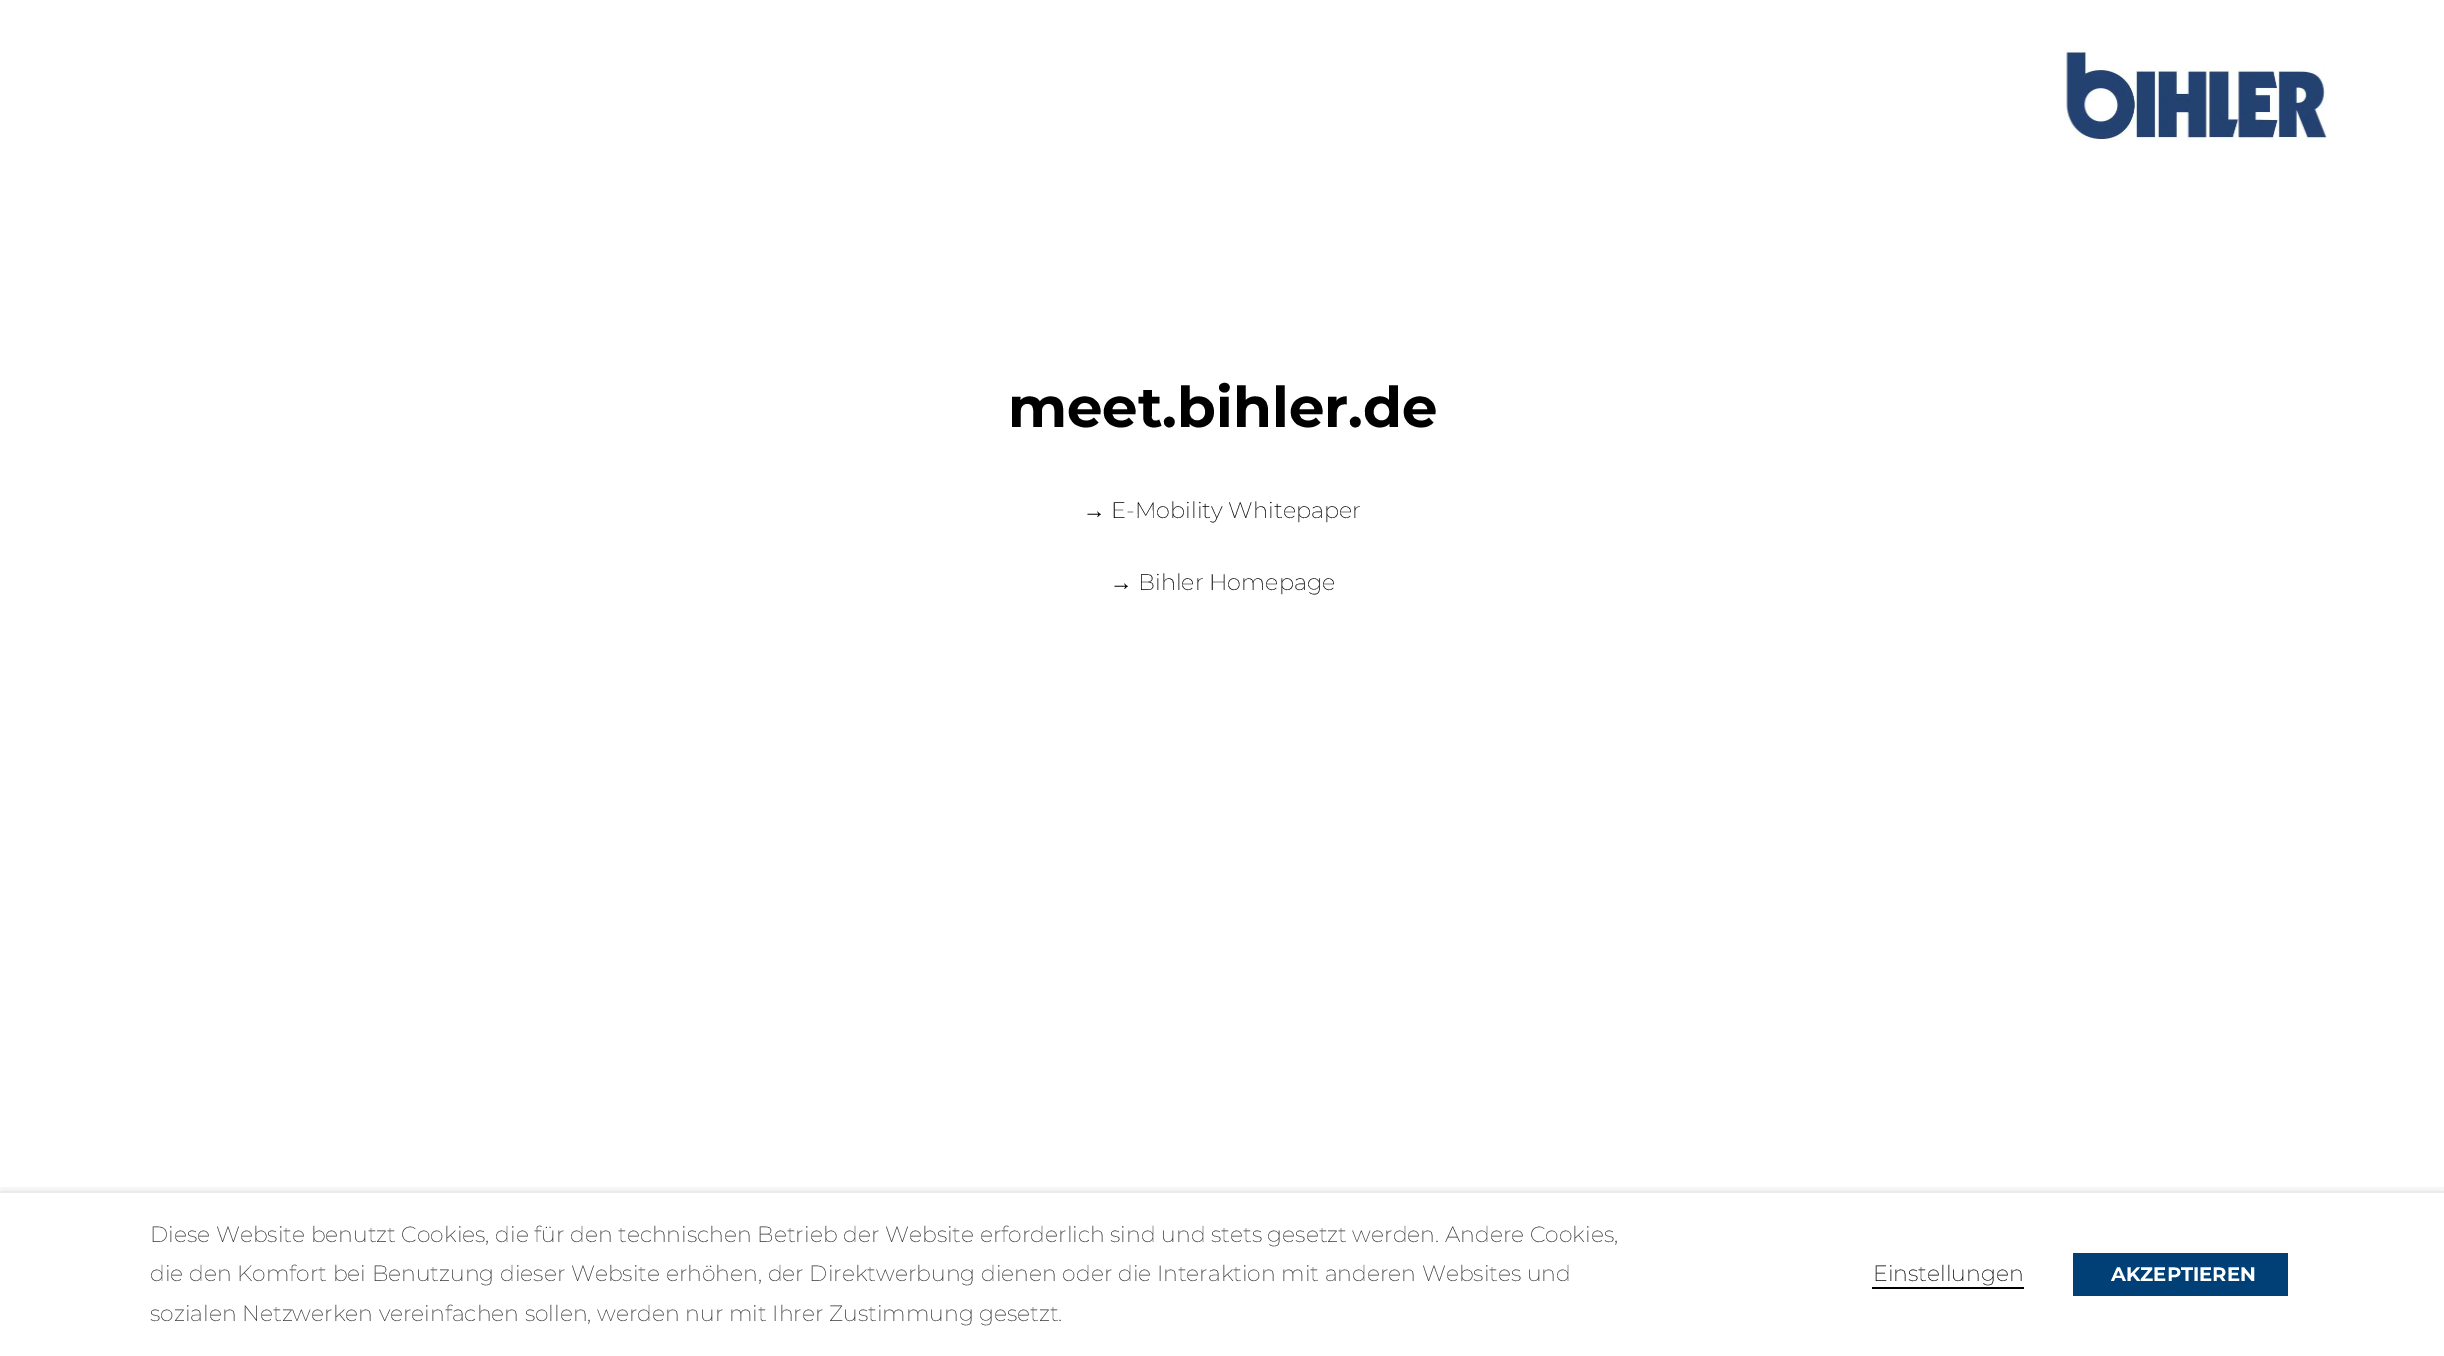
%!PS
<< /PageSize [2444 1356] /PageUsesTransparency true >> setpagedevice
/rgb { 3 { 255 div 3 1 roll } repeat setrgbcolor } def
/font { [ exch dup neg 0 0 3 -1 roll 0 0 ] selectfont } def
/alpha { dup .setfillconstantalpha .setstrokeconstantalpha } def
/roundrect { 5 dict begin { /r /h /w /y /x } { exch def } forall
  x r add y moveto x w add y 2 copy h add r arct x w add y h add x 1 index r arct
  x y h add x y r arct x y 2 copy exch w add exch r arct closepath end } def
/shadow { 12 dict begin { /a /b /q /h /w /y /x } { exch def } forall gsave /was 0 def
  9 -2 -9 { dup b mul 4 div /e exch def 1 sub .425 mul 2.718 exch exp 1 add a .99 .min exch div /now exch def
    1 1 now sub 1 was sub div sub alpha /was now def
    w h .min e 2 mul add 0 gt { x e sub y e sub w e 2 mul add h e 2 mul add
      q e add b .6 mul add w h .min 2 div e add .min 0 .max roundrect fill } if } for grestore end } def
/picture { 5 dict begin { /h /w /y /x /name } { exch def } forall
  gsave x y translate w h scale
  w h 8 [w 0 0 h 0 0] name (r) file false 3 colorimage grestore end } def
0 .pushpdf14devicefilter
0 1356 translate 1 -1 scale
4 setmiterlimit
255 255 255 rgb
0 0 2444 1356 rectfill
(img/1.rgb) 2063 49 264 92 picture
gsave
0 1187 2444 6 rectclip
0 0 0 rgb
0 1200 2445 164 0 7.5 0.5 shadow
grestore
0 0 0 rgb
1872 1287 152 2 rectfill
0 64 119 rgb
2073 1253 215 43 rectfill
/Montserrat-Bold 56.25 font
0 0 0 rgb
1008 427 moveto (meet.bihler.de) show
/LiberationSans-Regular 22.5 font
1083 518 moveto (→) show
/Montserrat-ExtraLight 22.5 font
1111 518 moveto (E-Mobility Whitepaper) show
/LiberationSans-Regular 22.5 font
1110 590 moveto (→) show
/Montserrat-ExtraLight 22.5 font
1138 590 moveto (Bihler Homepage) show
/Montserrat-ExtraLight 22 font
51 51 51 rgb
[
  [(Diese Website benutzt Cookies, die für den technischen Betrieb der Website erforderlich sind und stets gesetzt werden. Andere Cookies,) 150 1242]
  [(die den Komfort bei Benutzung dieser Website erhöhen, der Direktwerbung dienen oder die Interaktion mit anderen Websites und) 150 1281]
  [(sozialen Netzwerken vereinfachen sollen, werden nur mit Ihrer Zustimmung gesetzt.) 150 1321]
] { aload pop moveto show } forall
0 0 0 rgb
1873 1281 moveto (Einstellungen) show
/Montserrat-Bold 19.5 font
255 255 255 rgb
2111 1281 moveto (AKZEPTIEREN) show
.poppdf14devicefilter showpage
